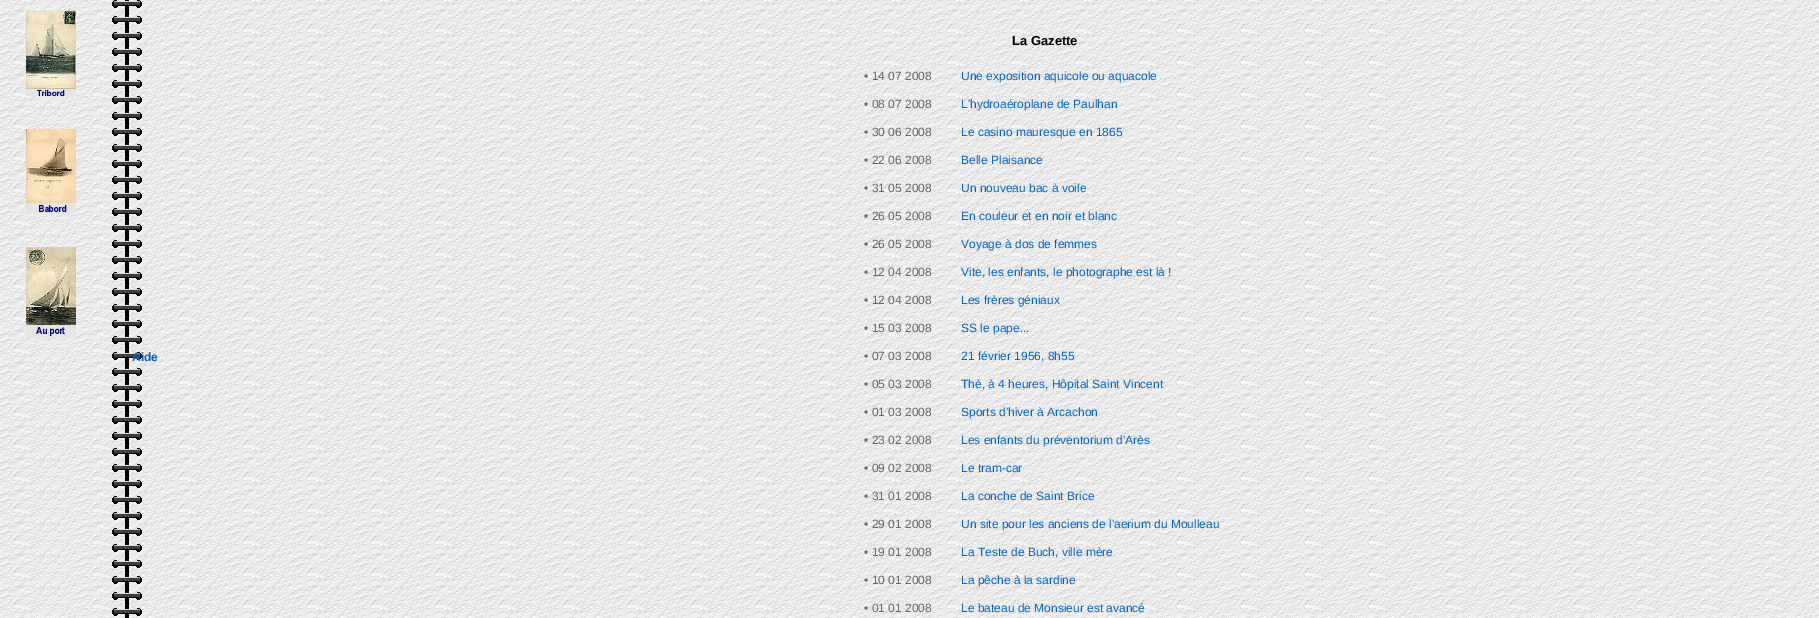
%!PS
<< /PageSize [1819 618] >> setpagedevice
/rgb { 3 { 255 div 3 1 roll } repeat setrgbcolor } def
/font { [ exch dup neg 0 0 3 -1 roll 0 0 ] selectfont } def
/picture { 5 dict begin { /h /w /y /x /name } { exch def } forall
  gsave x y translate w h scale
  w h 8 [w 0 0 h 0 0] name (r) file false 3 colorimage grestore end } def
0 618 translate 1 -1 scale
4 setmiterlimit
255 255 255 rgb
0 0 1819 618 rectfill
(img/1.rgb) 0 0 1819 618 picture
(img/2.rgb) 26 11 50 85 picture
(img/3.rgb) 26 129 50 85 picture
(img/4.rgb) 26 247 50 91 picture
/LiberationSans-Bold 12 font
0 102 204 rgb
132 361 moveto (Aide) show
/LiberationSans-Bold 13 font
0 0 0 rgb
1012 45 moveto (La Gazette) show
/LiberationSans-Regular 12 font
102 102 102 rgb
864 80 moveto (• 14 07 2008) show
0 102 204 rgb
961 80 moveto (Une exposition aquicole ou aquacole) show
102 102 102 rgb
864 108 moveto (• 08 07 2008) show
0 102 204 rgb
961 108 moveto (L'hydroaéroplane de Paulhan) show
102 102 102 rgb
864 136 moveto (• 30 06 2008) show
0 102 204 rgb
961 136 moveto (Le casino mauresque en 1865) show
102 102 102 rgb
864 164 moveto (• 22 06 2008) show
0 102 204 rgb
961 164 moveto (Belle Plaisance) show
102 102 102 rgb
864 192 moveto (• 31 05 2008) show
0 102 204 rgb
961 192 moveto (Un nouveau bac à voile) show
102 102 102 rgb
864 220 moveto (• 26 05 2008) show
0 102 204 rgb
961 220 moveto (En couleur et en noir et blanc) show
102 102 102 rgb
864 248 moveto (• 26 05 2008) show
0 102 204 rgb
961 248 moveto (Voyage à dos de femmes) show
102 102 102 rgb
864 276 moveto (• 12 04 2008) show
0 102 204 rgb
961 276 moveto (Vite, les enfants, le photographe est là !) show
102 102 102 rgb
864 304 moveto (• 12 04 2008) show
0 102 204 rgb
961 304 moveto (Les frères géniaux) show
102 102 102 rgb
864 332 moveto (• 15 03 2008) show
0 102 204 rgb
961 332 moveto (SS le pape...) show
102 102 102 rgb
864 360 moveto (• 07 03 2008) show
0 102 204 rgb
961 360 moveto (21 février 1956, 8h55) show
102 102 102 rgb
864 388 moveto (• 05 03 2008) show
0 102 204 rgb
961 388 moveto (Thé, à 4 heures, Hôpital Saint Vincent) show
102 102 102 rgb
864 416 moveto (• 01 03 2008) show
0 102 204 rgb
961 416 moveto (Sports d'hiver à Arcachon) show
102 102 102 rgb
864 444 moveto (• 23 02 2008) show
0 102 204 rgb
961 444 moveto (Les enfants du préventorium d'Arès) show
102 102 102 rgb
864 472 moveto (• 09 02 2008) show
0 102 204 rgb
961 472 moveto (Le tram-car) show
102 102 102 rgb
864 500 moveto (• 31 01 2008) show
0 102 204 rgb
961 500 moveto (La conche de Saint Brice) show
102 102 102 rgb
864 528 moveto (• 29 01 2008) show
0 102 204 rgb
961 528 moveto (Un site pour les anciens de l'aerium du Moulleau) show
102 102 102 rgb
864 556 moveto (• 19 01 2008) show
0 102 204 rgb
961 556 moveto (La Teste de Buch, ville mère) show
102 102 102 rgb
864 584 moveto (• 10 01 2008) show
0 102 204 rgb
961 584 moveto (La pêche à la sardine) show
102 102 102 rgb
864 612 moveto (• 01 01 2008) show
0 102 204 rgb
961 612 moveto (Le bateau de Monsieur est avancé) show
showpage
